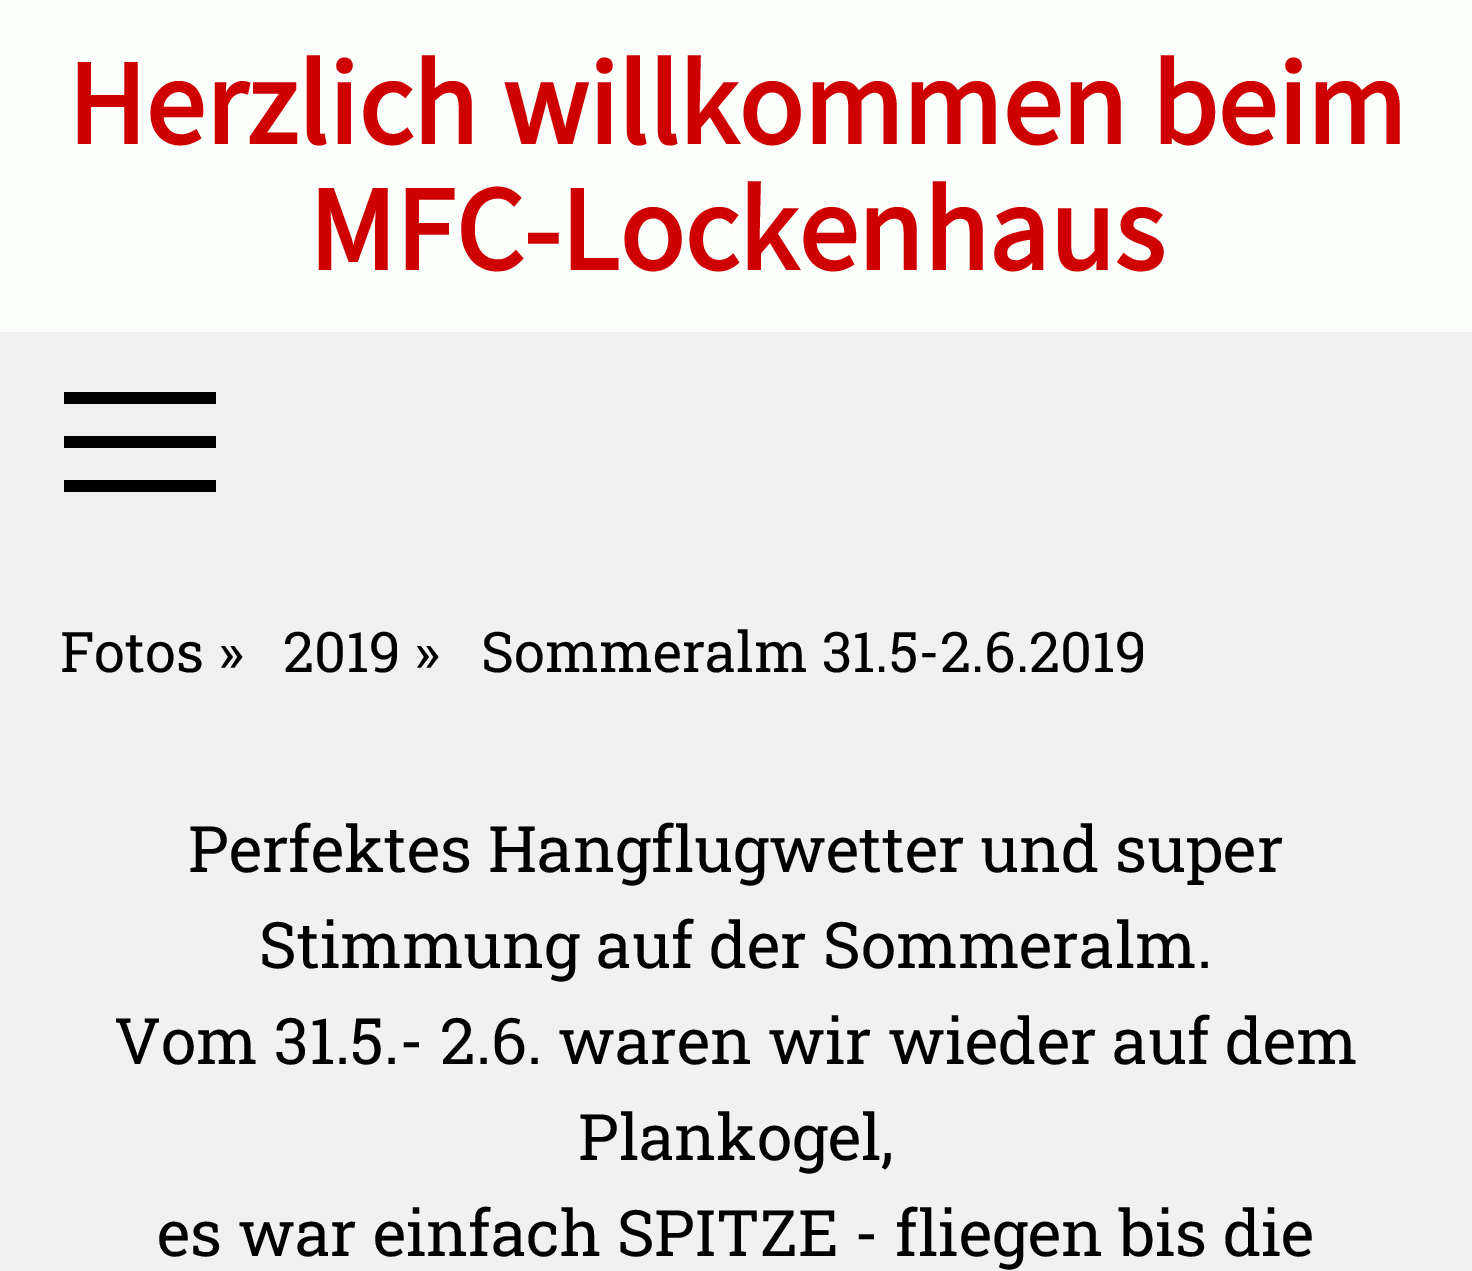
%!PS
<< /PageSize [1472 1271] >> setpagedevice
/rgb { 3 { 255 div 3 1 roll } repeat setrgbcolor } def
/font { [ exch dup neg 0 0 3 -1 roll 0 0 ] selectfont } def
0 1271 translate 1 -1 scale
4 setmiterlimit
252 254 252 rgb
0 0 1472 1271 rectfill
[
  [0 332 1472 939 241 241 241]
  [64 436 152 12 0 0 0]
  [64 392 152 12 0 0 0]
  [64 480 152 12 0 0 0]
] { aload pop rgb rectfill } forall
/SourceSansPro-Bold 120 font
206 0 0 rgb
67 144 moveto (Herzlich willkommen beim) show
308 270 moveto (MFC-Lockenhaus) show
/RobotoSlab-Regular 56 font
0 0 0 rgb
[
  [(Fotos ») 60 672]
  [(2019 ») 283 672]
  [(Sommeralm 31.5-2.6.2019) 481 672]
] { aload pop moveto show } forall
/RobotoSlab-Regular 64 font
[
  [(Perfektes Hangflugwetter und super) 188 872]
  [(Stimmung auf der Sommeralm.) 259 968]
  [(Vom 31.5.- 2.6. waren wir wieder auf dem) 114 1064]
  [(Plankogel,) 578 1160]
  [(es war einfach SPITZE - fliegen bis die) 157 1256]
] { aload pop moveto show } forall
showpage
